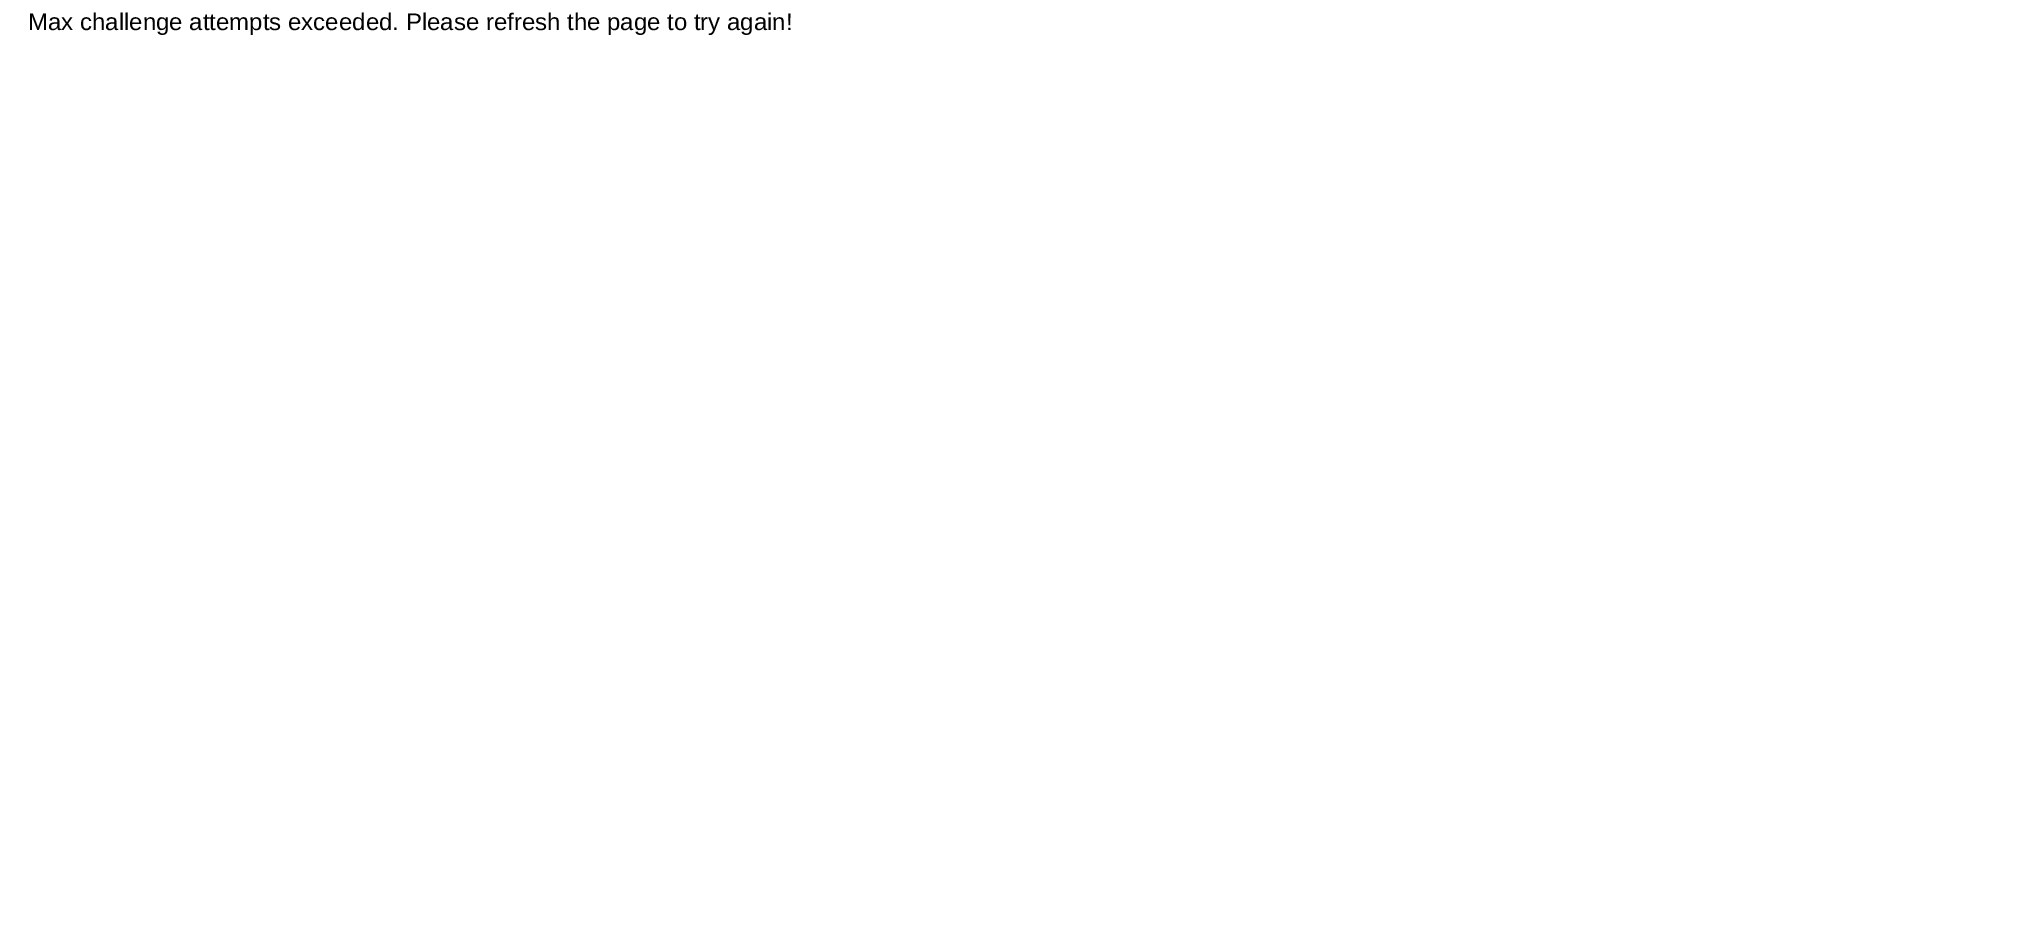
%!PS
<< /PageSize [2032 942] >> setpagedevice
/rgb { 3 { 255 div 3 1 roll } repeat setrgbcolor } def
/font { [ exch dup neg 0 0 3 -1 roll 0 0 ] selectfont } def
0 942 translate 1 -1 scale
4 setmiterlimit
255 255 255 rgb
0 0 2032 942 rectfill
/LiberationSans-Regular 24 font
0 0 0 rgb
28 30 moveto (Max challenge attempts exceeded. Please refresh the page to try again!) show
showpage
